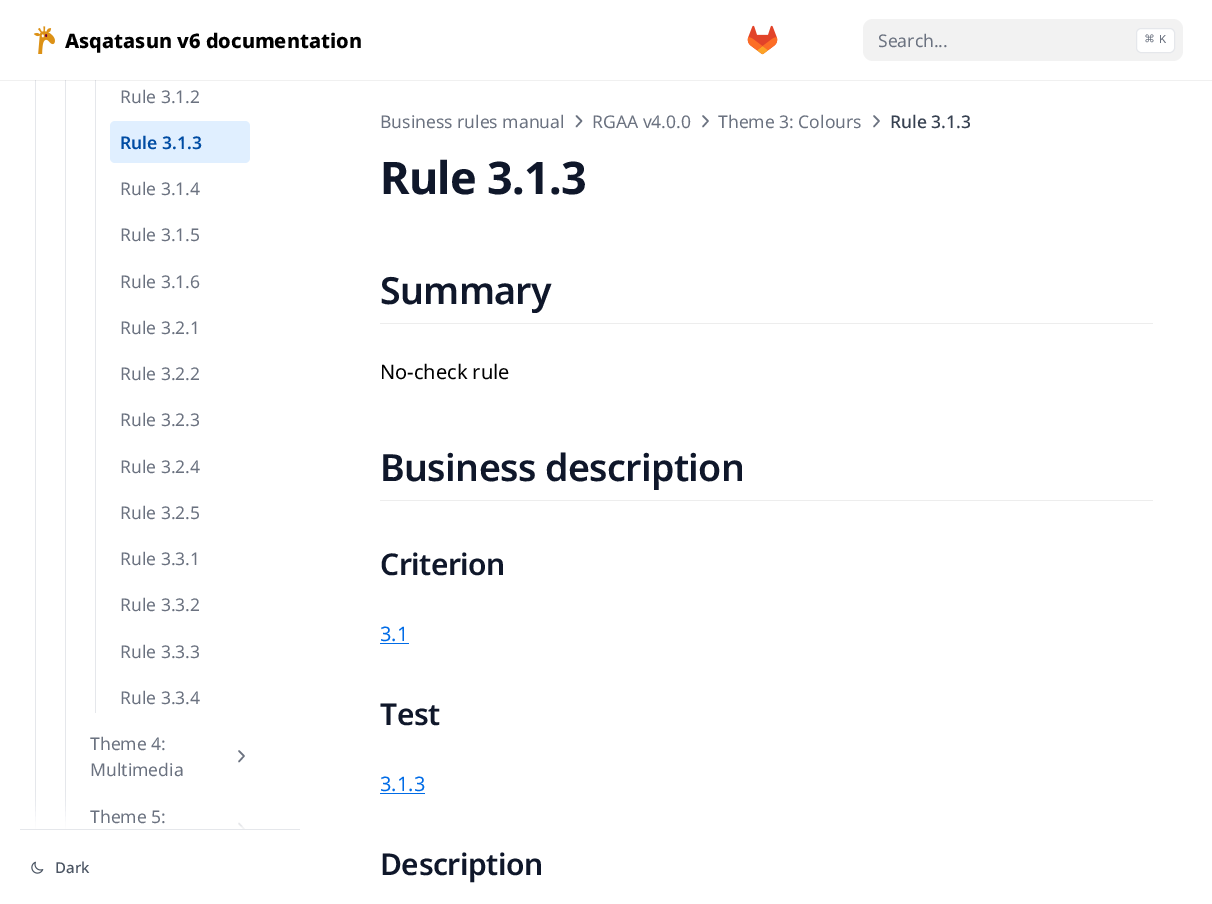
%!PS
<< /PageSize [1212 904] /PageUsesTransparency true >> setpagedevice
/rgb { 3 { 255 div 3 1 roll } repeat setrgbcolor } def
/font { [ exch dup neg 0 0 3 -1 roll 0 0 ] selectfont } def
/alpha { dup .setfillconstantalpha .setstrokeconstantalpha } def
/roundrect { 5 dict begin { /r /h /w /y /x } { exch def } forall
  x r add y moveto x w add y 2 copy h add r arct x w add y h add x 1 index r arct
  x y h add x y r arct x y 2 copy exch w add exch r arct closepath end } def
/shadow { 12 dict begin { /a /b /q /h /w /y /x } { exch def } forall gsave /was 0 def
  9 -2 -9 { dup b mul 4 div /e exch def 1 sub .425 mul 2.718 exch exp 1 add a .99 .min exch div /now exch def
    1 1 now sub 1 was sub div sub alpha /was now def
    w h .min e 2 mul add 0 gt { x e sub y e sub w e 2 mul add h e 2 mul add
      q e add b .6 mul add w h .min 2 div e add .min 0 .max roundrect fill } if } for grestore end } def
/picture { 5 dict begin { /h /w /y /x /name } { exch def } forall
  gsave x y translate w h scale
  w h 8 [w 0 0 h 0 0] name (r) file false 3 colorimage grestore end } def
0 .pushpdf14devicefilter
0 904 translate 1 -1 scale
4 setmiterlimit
255 255 255 rgb
0 0 1212 904 rectfill
(img/1.rgb) 33 26 22 28 picture
(img/2.rgb) 747 25 31 30 picture
242 242 242 rgb
863 19 320 42 10 roundrect fill
255 255 255 rgb
1136.5 28.5 38 24 4.5 roundrect gsave fill grestore
229 231 235 rgb
stroke
[
  [35 80 1 750 229 231 235]
  [65 80 1 750 229 231 235]
  [95 80 1 633 229 231 235]
] { aload pop rgb rectfill } forall
0.06 alpha
0 0 0 rgb
0 80 moveto 0 81 lineto 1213 81 lineto 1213 1 lineto 1212 1 lineto 1212 80 lineto closepath fill
1 alpha
224 239 255 rgb
110 121 140 42 5 roundrect fill
107 114 128 rgb
1.5 setlinewidth
1 setlinecap
1 setlinejoin
239 751 moveto 244 756 lineto 239 761.5 lineto stroke
gsave
50 80 225 750 rectclip
239 823.5 moveto 244 829 lineto 239 834 lineto stroke
grestore
gsave
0 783 moveto 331 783 lineto 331 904 lineto 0 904 lineto closepath 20 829 moveto 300 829 lineto 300 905 lineto 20 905 lineto closepath eoclip newpath
255 255 255 rgb
20 814 280 76 0 10 1 shadow
grestore
229 231 235 rgb
20 829 280 1 rectfill
(img/3.rgb) 31 861 13 13 picture
107 114 128 rgb
576.5 116 moveto 581.5 121 lineto 576.5 126.5 lineto stroke
703 116 moveto 708 121 lineto 703 126.5 lineto stroke
874 116 moveto 879 121 lineto 874 126.5 lineto stroke
[
  [380 323 773 1 237 237 237]
  [380 500 773 1 237 237 237]
  [380 643 29 1 0 107 230]
  [380 793 45 1 0 107 230]
] { aload pop rgb rectfill } forall
/NotoSans-ExtraBold 20 font
0 0 0 rgb
65 48 moveto (Asqatasun v6 documentation) show
/NotoSans-Regular 17.5 font
107 114 128 rgb
878 47 moveto (Search...) show
/DejaVuSansMono-Regular 15 font
1145 44 moveto (⌘) show
/LiberationMono-Regular 12 font
1159 43 moveto (K) show
/NotoSans-Regular 17.5 font
120 103 moveto (Rule 3.1.2) show
/NotoSans-SemiBold 17.5 font
0 76 163 rgb
120 149 moveto (Rule 3.1.3) show
/NotoSans-Regular 17.5 font
107 114 128 rgb
[
  [(Rule 3.1.4) 120 195]
  [(Rule 3.1.5) 120 241]
  [(Rule 3.1.6) 120 288]
  [(Rule 3.2.1) 120 334]
  [(Rule 3.2.2) 120 380]
  [(Rule 3.2.3) 120 426]
  [(Rule 3.2.4) 120 473]
  [(Rule 3.2.5) 120 519]
  [(Rule 3.3.1) 120 565]
  [(Rule 3.3.2) 120 611]
  [(Rule 3.3.3) 120 658]
  [(Rule 3.3.4) 120 704]
  [(Theme 4:) 90 750]
  [(Multimedia) 90 776]
  [(Theme 5:) 90 823]
] { aload pop moveto show } forall
/NotoSans-Medium 15 font
75 85 99 rgb
55 873 moveto (Dark) show
/NotoSans-Regular 17.5 font
107 114 128 rgb
[
  [(Business rules manual) 380 128]
  [(RGAA v4.0.0) 592 128]
  [(Theme 3: Colours) 718 128]
] { aload pop moveto show } forall
/NotoSans-Medium 17.5 font
55 65 81 rgb
890 128 moveto (Rule 3.1.3) show
/NotoSans-Bold 45 font
15 23 42 rgb
380 194 moveto -0.75 0 (Rule 3.1.3) ashow
/NotoSans-SemiBold 37.5 font
380 304 moveto -0.6 0 (Summary) ashow
/NotoSans-Regular 20 font
0 0 0 rgb
380 379 moveto (No-check rule) show
/NotoSans-SemiBold 37.5 font
15 23 42 rgb
380 481 moveto -0.6 0 (Business description) ashow
/NotoSans-SemiBold 30 font
380 575 moveto -0.5 0 (Criterion) ashow
/NotoSans-Regular 20 font
0 107 230 rgb
380 641 moveto (3.1) show
/NotoSans-SemiBold 30 font
15 23 42 rgb
380 725 moveto -0.5 0 (Test) ashow
/NotoSans-Regular 20 font
0 107 230 rgb
380 791 moveto (3.1.3) show
/NotoSans-SemiBold 30 font
15 23 42 rgb
380 875 moveto -0.5 0 (Description) ashow
.poppdf14devicefilter showpage
